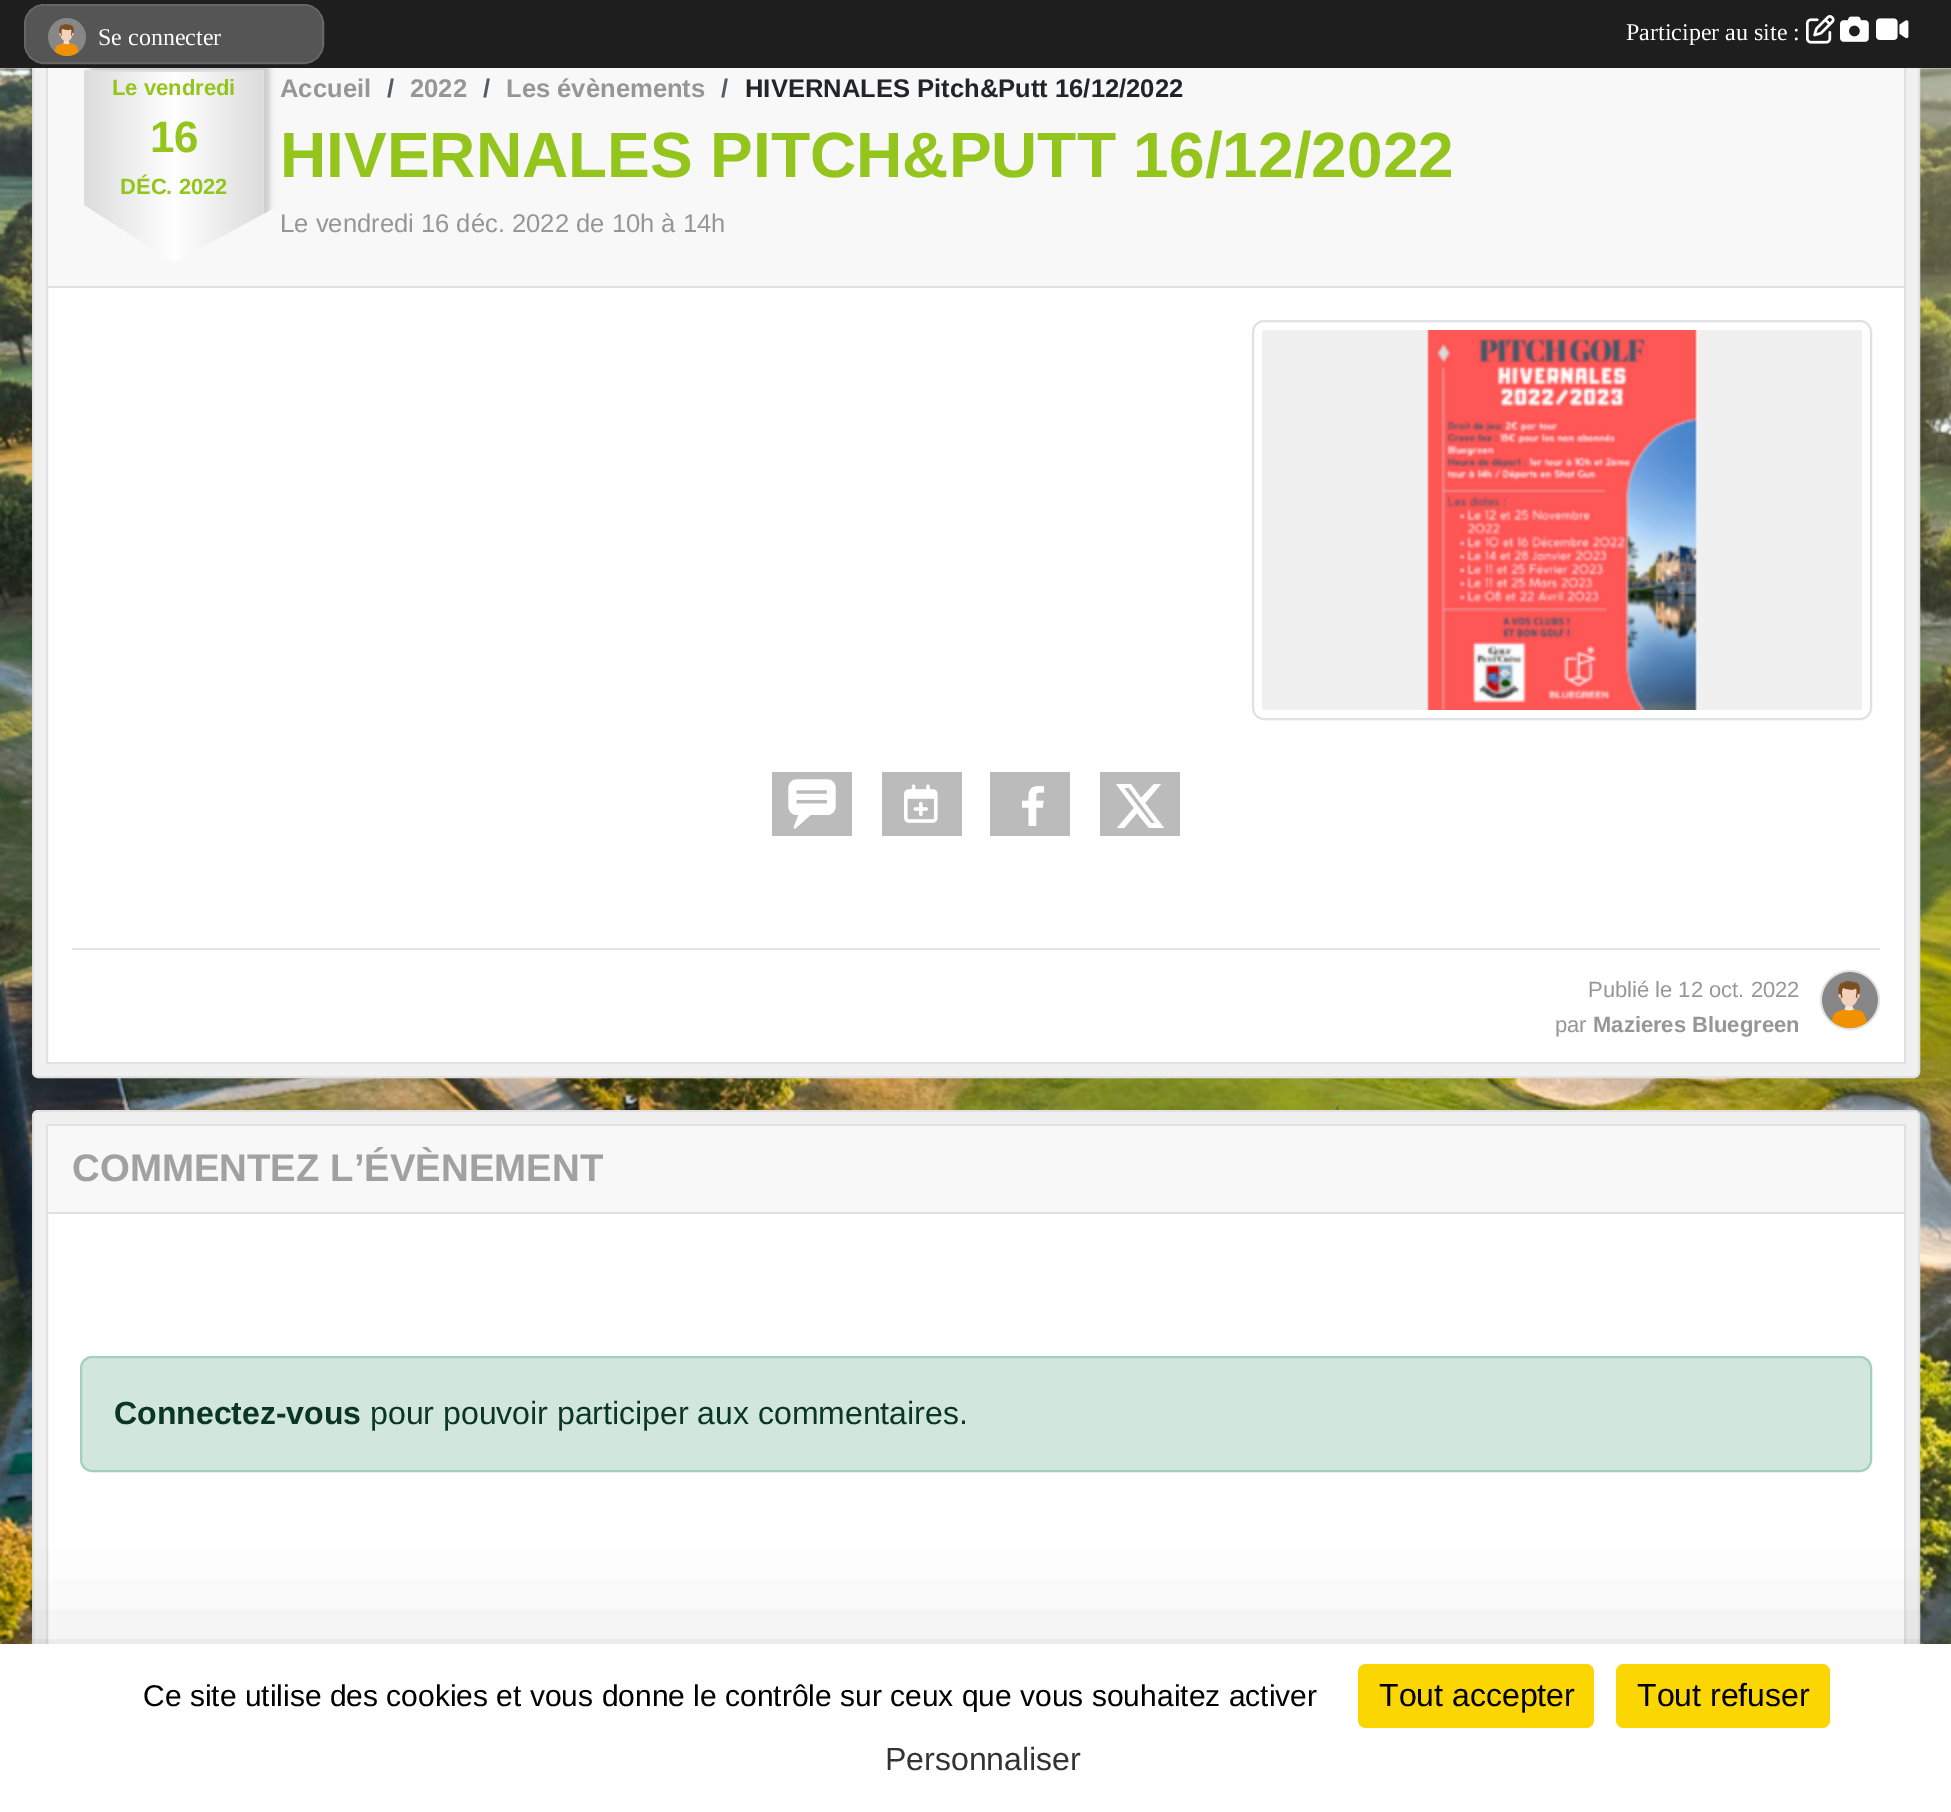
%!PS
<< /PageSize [1951 1812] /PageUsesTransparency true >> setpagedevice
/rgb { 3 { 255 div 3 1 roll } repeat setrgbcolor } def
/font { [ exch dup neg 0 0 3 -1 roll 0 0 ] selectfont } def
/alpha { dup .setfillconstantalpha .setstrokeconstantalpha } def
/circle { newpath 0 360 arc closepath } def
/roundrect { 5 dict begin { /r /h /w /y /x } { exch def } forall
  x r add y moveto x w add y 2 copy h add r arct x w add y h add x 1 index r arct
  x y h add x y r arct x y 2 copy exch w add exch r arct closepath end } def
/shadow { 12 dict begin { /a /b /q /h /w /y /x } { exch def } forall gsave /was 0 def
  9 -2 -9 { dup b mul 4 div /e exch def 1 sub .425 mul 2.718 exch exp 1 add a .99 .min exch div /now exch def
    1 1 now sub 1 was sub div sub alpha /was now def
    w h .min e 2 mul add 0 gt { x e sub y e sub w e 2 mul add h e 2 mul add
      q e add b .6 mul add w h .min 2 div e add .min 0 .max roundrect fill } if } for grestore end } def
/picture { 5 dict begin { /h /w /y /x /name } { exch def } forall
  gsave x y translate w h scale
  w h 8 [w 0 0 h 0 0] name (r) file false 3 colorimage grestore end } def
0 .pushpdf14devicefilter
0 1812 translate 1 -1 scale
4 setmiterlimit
247 247 247 rgb
0 0 1951 1812 rectfill
(img/1.rgb) 0 68 1951 1576 picture
240 240 240 rgb
33 35 1886 1042 5 roundrect gsave fill grestore
225 225 225 rgb
2 setlinewidth
stroke
255 255 255 rgb
48 288 1856 774 rectfill
225 225 225 rgb
47 49 1858 1014 rectstroke
248 248 248 rgb
48 68 1856 218 rectfill
204 204 204 rgb
90 64 180 194 0 3 1 shadow
30 30 30 rgb
0 0 1951 68 rectfill
102 102 102 rgb
25 5 298 58 19 roundrect stroke
85 85 85 rgb
26 6 296 56 18 roundrect fill
(img/2.rgb) 48 18 38 38 picture
(img/3.rgb) 1806 15 29 29 picture
(img/4.rgb) 1840 16 29 26 picture
(img/5.rgb) 1876 18 33 22 picture
225 225 225 rgb
48 286 1856 2 rectfill
gsave 84 70 moveto 86 70 lineto 86 207 lineto 84 207 lineto closepath clip newpath
<< /ShadingType 2 /ColorSpace /DeviceRGB /Coords [-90 168 86 168] /Extend [true true] /Function << /FunctionType 3 /Domain [0 1] /Functions [<< /FunctionType 2 /Domain [0 1] /C0 [0.867 0.867 0.867] /C1 [1 1 1] /N 1 >> << /FunctionType 2 /Domain [0 1] /C0 [1 1 1] /C1 [0.867 0.867 0.867] /N 1 >>] /Bounds [0.5] /Encode [0 1 0 1] >> >> shfill grestore
gsave 86 72 moveto 262 72 lineto 262 263 lineto 86 263 lineto closepath clip newpath
<< /ShadingType 2 /ColorSpace /DeviceRGB /Coords [86 168 262 168] /Extend [true true] /Function << /FunctionType 3 /Domain [0 1] /Functions [<< /FunctionType 2 /Domain [0 1] /C0 [0.867 0.867 0.867] /C1 [1 1 1] /N 1 >> << /FunctionType 2 /Domain [0 1] /C0 [1 1 1] /C1 [0.867 0.867 0.867] /N 1 >>] /Bounds [0.5] /Encode [0 1 0 1] >> >> shfill grestore
gsave 262 70 moveto 264 70 lineto 264 215 lineto 262 215 lineto closepath clip newpath
<< /ShadingType 2 /ColorSpace /DeviceRGB /Coords [262 168 438 168] /Extend [true true] /Function << /FunctionType 3 /Domain [0 1] /Functions [<< /FunctionType 2 /Domain [0 1] /C0 [0.867 0.867 0.867] /C1 [1 1 1] /N 1 >> << /FunctionType 2 /Domain [0 1] /C0 [1 1 1] /C1 [0.867 0.867 0.867] /N 1 >>] /Bounds [0.5] /Encode [0 1 0 1] >> >> shfill grestore
221 221 221 rgb
84 70 180 2 rectfill
248 248 248 rgb
82 264 moveto 82 204 lineto 176 264 lineto closepath fill
282 204 moveto 282 264 lineto 172 264 lineto closepath fill
222 226 230 rgb
1253 321 618 398 11 roundrect stroke
(img/6.rgb) 1262 330 600 380 picture
187 187 187 rgb
772 772 80 64 rectfill
(img/7.rgb) 788 779 48 50 picture
882 772 80 64 rectfill
(img/8.rgb) 904 784 34 39 picture
990 772 80 64 rectfill
(img/9.rgb) 1022 786 22 40 picture
1100 772 80 64 rectfill
255 255 255 rgb
1154 784 moveto 1161 784 lineto 1145 803 lineto 1164 828 lineto 1149 828 lineto 1137 813 lineto 1124 828 lineto 1117 828 lineto 1134 808 lineto 1116 784 lineto 1131 784 lineto 1141 798 lineto closepath 1151 823 moveto 1155 823 lineto 1129 788 lineto 1124 788 lineto closepath fill
225 225 225 rgb
72 948 1808 2 rectfill
1850 1000 29 circle stroke
(img/10.rgb) 1822 972 56 56 picture
240 240 240 rgb
33 1111 1886 572 5 roundrect gsave fill grestore
225 225 225 rgb
stroke
255 255 255 rgb
48 1214 1856 430 rectfill
225 225 225 rgb
47 1125 1858 544 rectstroke
248 248 248 rgb
48 1126 1856 86 rectfill
225 225 225 rgb
48 1212 1856 2 rectfill
209 231 221 rgb
81 1357 1790 114 11 roundrect gsave fill grestore
163 207 187 rgb
stroke
0 0 0 rgb
0 1684 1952 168 0 60 0.25 shadow
255 255 255 rgb
0 1644 1951 168 rectfill
251 214 0 rgb
1358 1664 236 64 8 roundrect fill
1616 1664 214 64 8 roundrect fill
/LiberationSerif-Regular 24 font
255 255 255 rgb
98 45 moveto (Se connecter) show
1626 40 moveto (Participer au site :) show
/LiberationSans-Bold 22 font
147 197 29 rgb
112 95 moveto (Le vendredi) show
/LiberationSans-Bold 44 font
150 152 moveto (16) show
/LiberationSans-Bold 22 font
120 194 moveto (DÉC. 2022) show
/LiberationSans-Bold 25.6 font
150 150 150 rgb
280 97 moveto (Accueil) show
87 90 93 rgb
387 97 moveto (/) show
150 150 150 rgb
410 97 moveto (2022) show
87 90 93 rgb
483 97 moveto (/) show
150 150 150 rgb
506 97 moveto (Les évènements) show
87 90 93 rgb
721 97 moveto (/) show
33 37 41 rgb
745 97 moveto (HIVERNALES Pitch&Putt 16/12/2022) show
/LiberationSans-Bold 64 font
147 197 29 rgb
280 177 moveto (HIVERNALES PITCH&PUTT 16/12/2022) show
/LiberationSans-Regular 25.6 font
150 150 150 rgb
280 232 moveto (Le vendredi 16 déc. 2022 de 10h à 14h) show
/LiberationSans-Regular 22 font
1588 997 moveto (Publié le 12 oct. 2022) show
1555 1032 moveto (par) show
/LiberationSans-Bold 22 font
1593 1032 moveto (Mazieres Bluegreen) show
/LiberationSans-Bold 38.4 font
161 161 161 rgb
72 1181 moveto (COMMENTEZ L’ÉVÈNEMENT) show
/LiberationSans-Bold 32 font
10 54 34 rgb
114 1424 moveto (Connectez-vous) show
/LiberationSans-Regular 32 font
370 1424 moveto (pour pouvoir participer aux commentaires.) show
gsave
122 1678 1214 34 rectclip
/LiberationSans-Regular 30 font
0 0 0 rgb
143 1706 moveto (Ce site utilise des cookies et vous donne le contrôle sur ceux que vous souhaitez activer) show
grestore
0 0 0 rgb
1379 1706 moveto (Tout accepter) show
1637 1706 moveto (Tout refuser) show
51 51 51 rgb
885 1770 moveto (Personnaliser) show
.poppdf14devicefilter showpage
